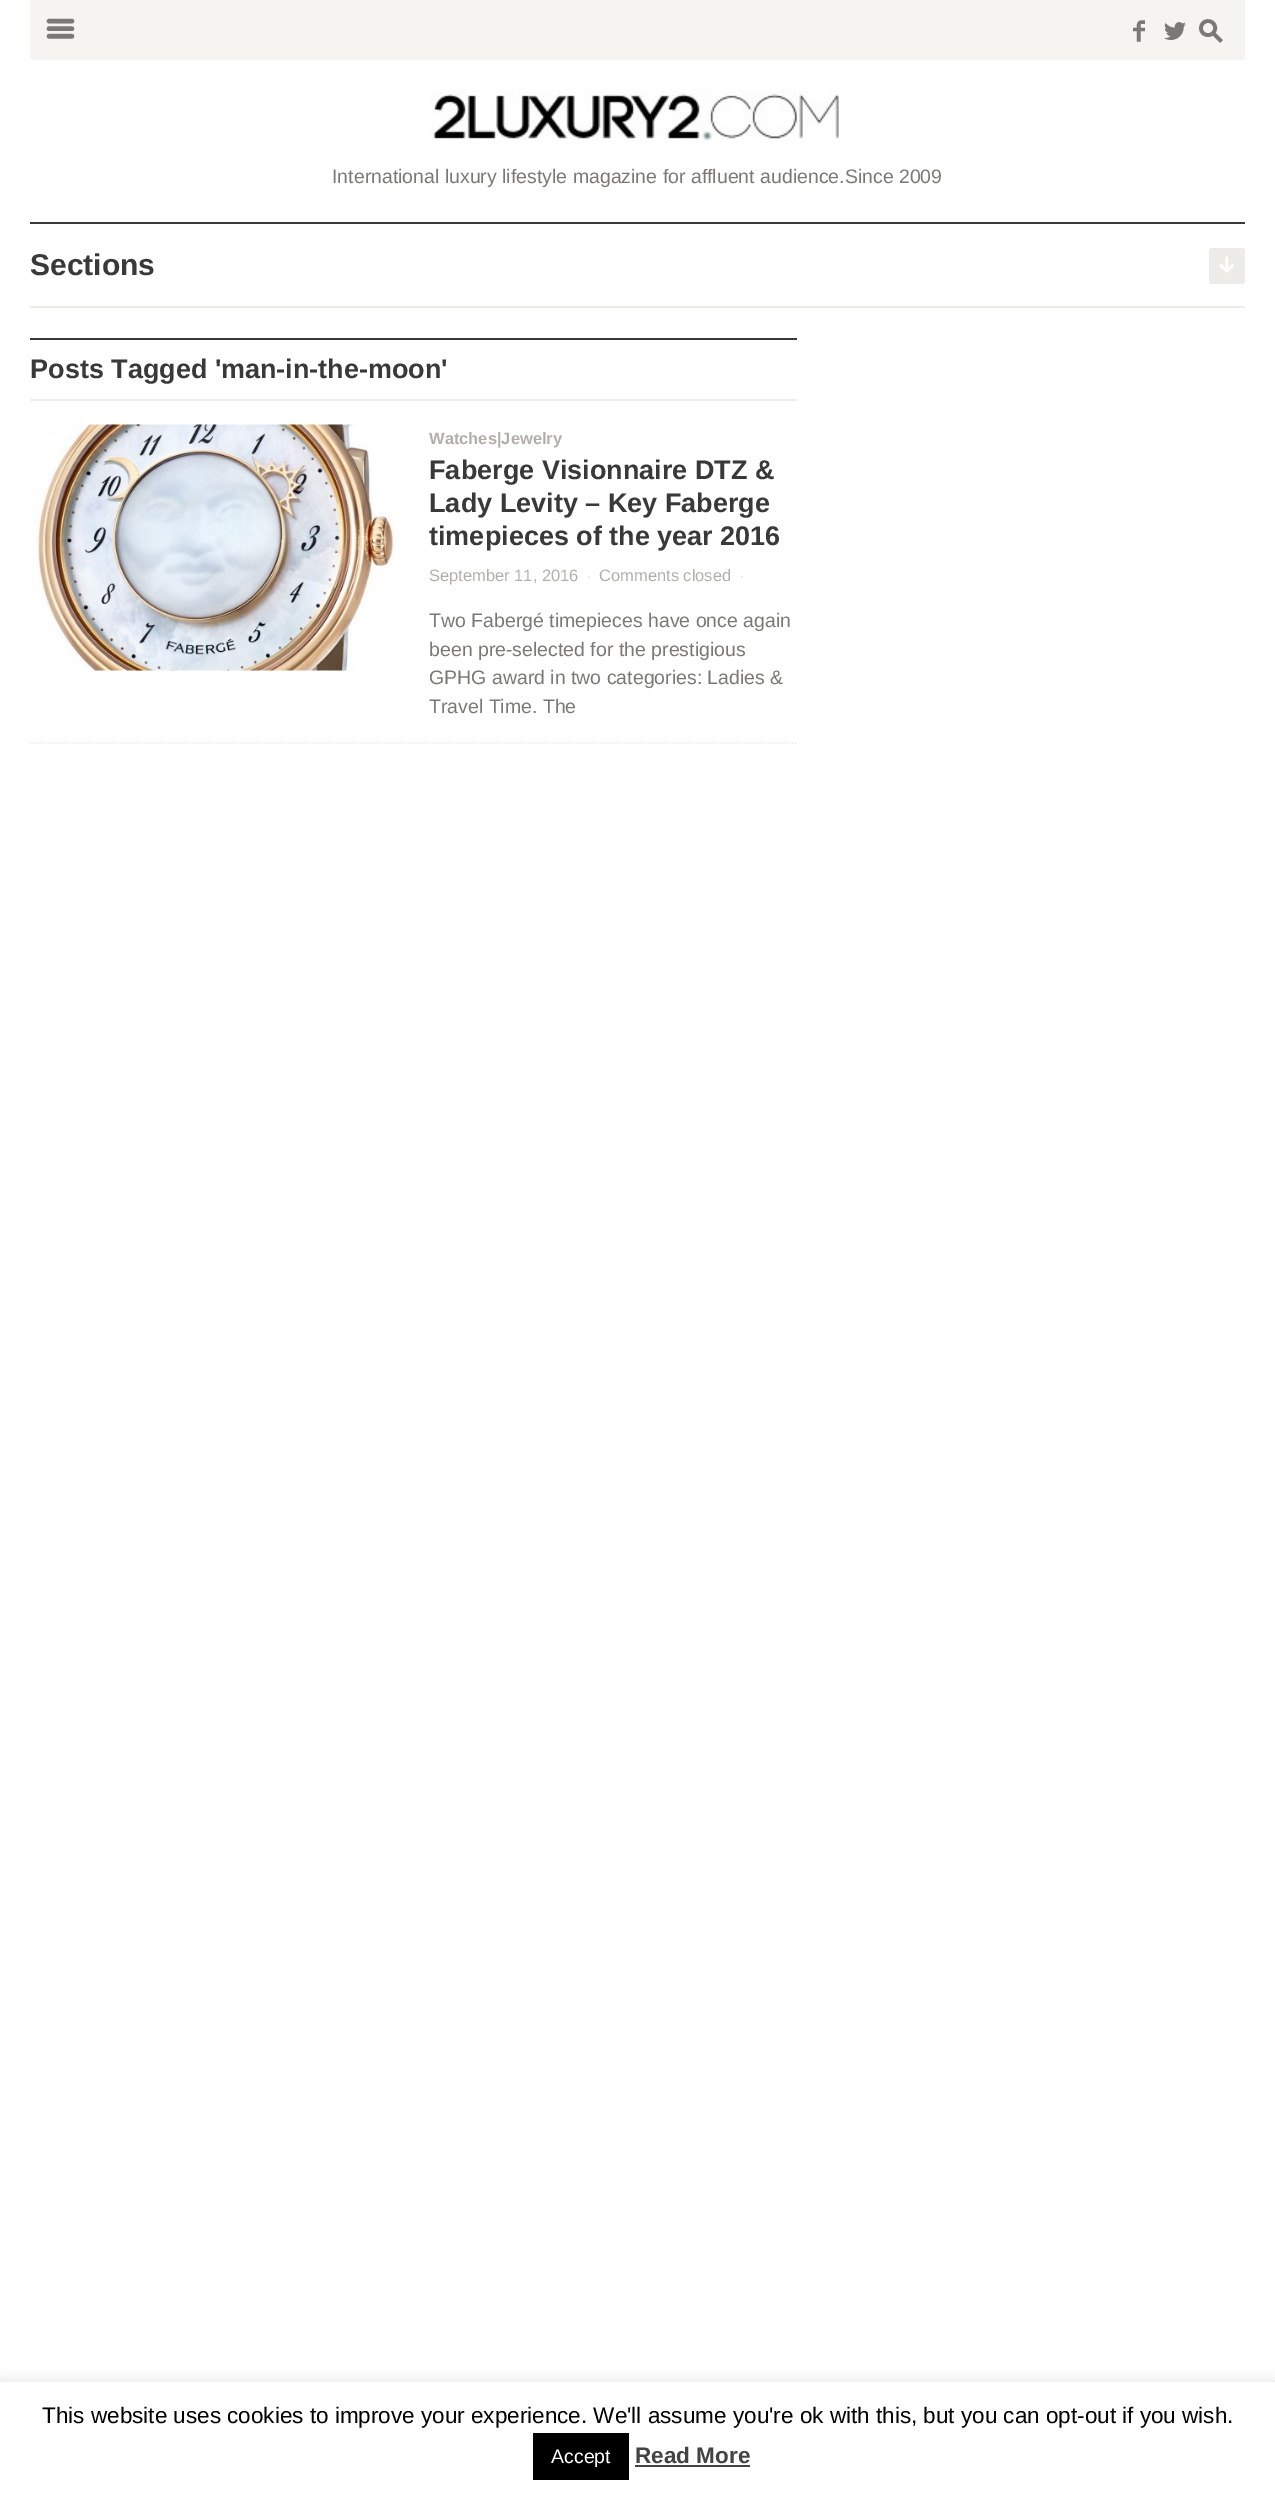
%!PS
<< /PageSize [1275 2497] /PageUsesTransparency true >> setpagedevice
/rgb { 3 { 255 div 3 1 roll } repeat setrgbcolor } def
/font { [ exch dup neg 0 0 3 -1 roll 0 0 ] selectfont } def
/alpha { dup .setfillconstantalpha .setstrokeconstantalpha } def
/roundrect { 5 dict begin { /r /h /w /y /x } { exch def } forall
  x r add y moveto x w add y 2 copy h add r arct x w add y h add x 1 index r arct
  x y h add x y r arct x y 2 copy exch w add exch r arct closepath end } def
/shadow { 12 dict begin { /a /b /q /h /w /y /x } { exch def } forall gsave /was 0 def
  9 -2 -9 { dup b mul 4 div /e exch def 1 sub .425 mul 2.718 exch exp 1 add a .99 .min exch div /now exch def
    1 1 now sub 1 was sub div sub alpha /was now def
    w h .min e 2 mul add 0 gt { x e sub y e sub w e 2 mul add h e 2 mul add
      q e add b .6 mul add w h .min 2 div e add .min 0 .max roundrect fill } if } for grestore end } def
/picture { 5 dict begin { /h /w /y /x /name } { exch def } forall
  gsave x y translate w h scale
  w h 8 [w 0 0 h 0 0] name (r) file false 3 colorimage grestore end } def
0 .pushpdf14devicefilter
0 2497 translate 1 -1 scale
4 setmiterlimit
255 255 255 rgb
0 0 1275 2497 rectfill
245 244 241 rgb
30 0 moveto 1245 0 lineto 1245 57 lineto 1245 58.5 1243.5 60 1242 60 curveto 33 60 lineto 31.5 60 30 58.5 30 57 curveto closepath fill
(img/1.rgb) 430 90 409 52 picture
58 57 57 rgb
30 222 1215 2 rectfill
237 236 232 rgb
30 306 1215 2 rectfill
1209 248 36 36 3 roundrect fill
(img/2.rgb) 1219 256 15 17 picture
58 57 57 rgb
30 338 767 2 rectfill
237 236 232 rgb
30 399 767 2 rectfill
1.5 setlinewidth
[1.5 1.5] 0 setdash
30 743 moveto 796.5 743 lineto stroke
(img/3.rgb) 32 424 366 247 picture
172 171 171 rgb
0 2381 1275 115 0 7.5 0.3 shadow
[
  [0 2382 1275 115 255 255 255]
  [533 2433 96 47 0 0 0]
  [635 2465 115 2 68 68 68]
] { aload pop rgb rectfill } forall
/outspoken-Bold 38 font
123 121 118 rgb
41 45 moveto (m) show
/outspoken-Regular 24 font
[
  [(f) 1127 41]
  [(w) 1163 41]
  [(s) 1199 41]
] { aload pop moveto show } forall
/LiberationSans-Regular 19.5 font
332 183 moveto (International luxury lifestyle magazine for affluent audience.Since 2009) show
/LiberationSans-Bold 30 font
58 57 57 rgb
30 275 moveto (Sections) show
/LiberationSans-Bold 27 font
30 378 moveto (Posts Tagged 'man-in-the-moon') show
/LiberationSans-Bold 16.5 font
178 175 171 rgb
429 444 moveto (Watches|Jewelry) show
/LiberationSans-Bold 27 font
58 57 57 rgb
[
  [(Faberge Visionnaire DTZ &) 429 479]
  [(Lady Levity – Key Faberge) 429 512]
  [(timepieces of the year 2016) 429 545]
] { aload pop moveto show } forall
/LiberationSans-Regular 16.5 font
178 175 171 rgb
429 581 moveto (September 11, 2016) show
224 223 221 rgb
586 581 moveto (·) show
178 175 171 rgb
599 581 moveto (Comments closed) show
224 223 221 rgb
739 581 moveto (·) show
/LiberationSans-Regular 19.5 font
123 121 118 rgb
[
  [(Two Fabergé timepieces have once again) 429 627]
  [(been pre-selected for the prestigious) 429 656]
  [(GPHG award in two categories: Ladies &) 429 684]
  [(Travel Time. The) 429 713]
] { aload pop moveto show } forall
/LiberationSans-Regular 22.5 font
0 0 0 rgb
42 2423 moveto (This website uses cookies to improve your experience. We'll assume you're ok with this, but you can opt-out if you wish.) show
/LiberationSans-Regular 19.5 font
255 255 255 rgb
551 2463 moveto (Accept) show
/LiberationSans-Bold 22.5 font
68 68 68 rgb
635 2463 moveto (Read More) show
.poppdf14devicefilter showpage
